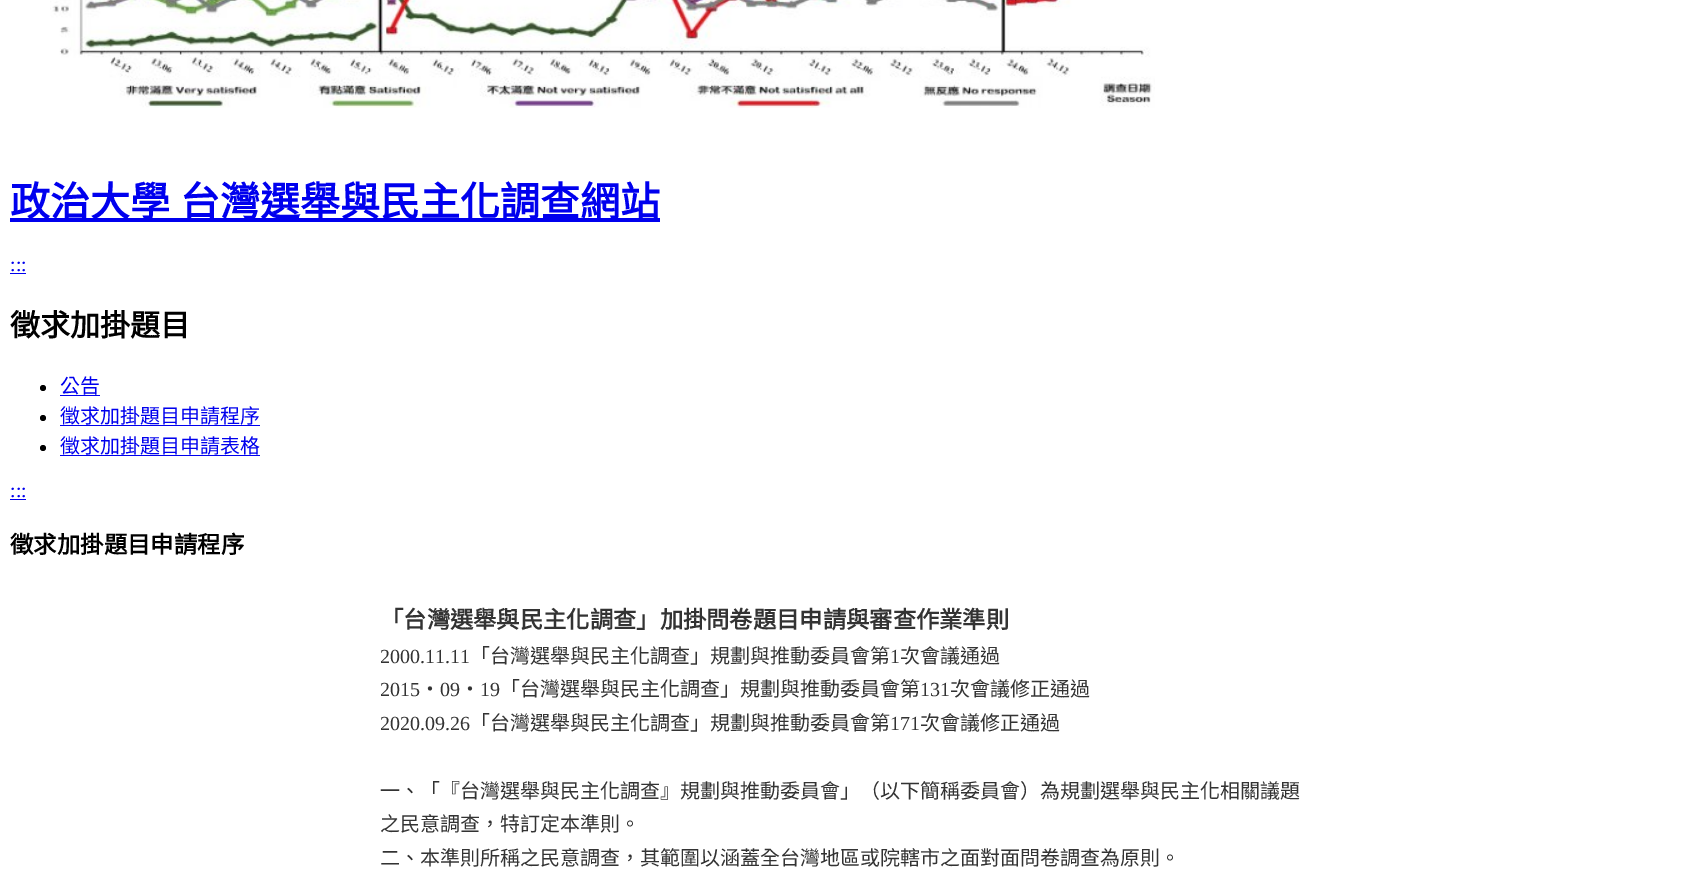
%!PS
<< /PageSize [1684 877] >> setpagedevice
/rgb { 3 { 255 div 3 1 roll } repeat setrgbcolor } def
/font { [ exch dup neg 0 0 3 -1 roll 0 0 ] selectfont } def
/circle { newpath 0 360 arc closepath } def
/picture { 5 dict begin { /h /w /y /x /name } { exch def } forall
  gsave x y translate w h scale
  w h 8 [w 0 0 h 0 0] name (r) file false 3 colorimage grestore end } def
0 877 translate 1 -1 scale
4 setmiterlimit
255 255 255 rgb
0 0 1684 877 rectfill
(img/1.rgb) 50 0 1105 108 picture
0 0 238 rgb
10 218 650 4 rectfill
10 273 16 1 rectfill
0 0 0 rgb
43 388 3 circle fill
0 0 238 rgb
60 395 40 1 rectfill
0 0 0 rgb
43 418 3 circle fill
0 0 238 rgb
60 425 200 1 rectfill
0 0 0 rgb
43 448 3 circle fill
0 0 238 rgb
60 455 200 1 rectfill
10 499 16 1 rectfill
/NotoSansCJKTC-Bold 40 font
10 216 moveto 1 0 32 (政治大學 台灣選舉與民主化調查網站) widthshow
/LiberationSerif-Regular 20 font
10 271 moveto (:::) show
/NotoSansCJKTC-Bold 30 font
0 0 0 rgb
10 336 moveto (徵求加掛題目) show
/NotoSansCJKTC-Regular 20 font
0 0 238 rgb
[
  [(公告) 60 393]
  [(徵求加掛題目申請程序) 60 423]
  [(徵求加掛題目申請表格) 60 453]
] { aload pop moveto show } forall
/LiberationSerif-Regular 20 font
10 497 moveto (:::) show
/NotoSansCJKTC-Bold 23.4 font
0 0 0 rgb
10 553 moveto (徵求加掛題目申請程序) show
/NotoSansCJKTC-Bold 23.3 font
51 51 51 rgb
380 628 moveto (「台灣選舉與民主化調查」加掛問卷題目申請與審查作業準則) show
/LiberationSerif-Regular 20 font
380 663 moveto (2000.11.11) show
/NotoSansCJKTC-Regular 20 font
470 663 moveto (「台灣選舉與民主化調查」規劃與推動委員會第) show
/LiberationSerif-Regular 20 font
890 663 moveto (1) show
/NotoSansCJKTC-Regular 20 font
900 663 moveto (次會議通過) show
/LiberationSerif-Regular 20 font
380 696 moveto (2015) show
/NotoSansCJKTC-Regular 20 font
420 696 moveto (‧) show
/LiberationSerif-Regular 20 font
440 696 moveto (09) show
/NotoSansCJKTC-Regular 20 font
460 696 moveto (‧) show
/LiberationSerif-Regular 20 font
480 696 moveto (19) show
/NotoSansCJKTC-Regular 20 font
500 696 moveto (「台灣選舉與民主化調查」規劃與推動委員會第) show
/LiberationSerif-Regular 20 font
920 696 moveto (131) show
/NotoSansCJKTC-Regular 20 font
950 696 moveto (次會議修正通過) show
/LiberationSerif-Regular 20 font
380 730 moveto (2020.09.26) show
/NotoSansCJKTC-Regular 20 font
470 730 moveto (「台灣選舉與民主化調查」規劃與推動委員會第) show
/LiberationSerif-Regular 20 font
890 730 moveto (171) show
/NotoSansCJKTC-Regular 20 font
[
  [(次會議修正通過) 920 730]
  [(一、「『台灣選舉與民主化調查』規劃與推動委員會」（以下簡稱委員會）為規劃選舉與民主化相關議題) 380 798]
  [(之民意調查，特訂定本準則。) 380 831]
  [(二、本準則所稱之民意調查，其範圍以涵蓋全台灣地區或院轄市之面對面問卷調查為原則。) 380 865]
] { aload pop moveto show } forall
showpage
